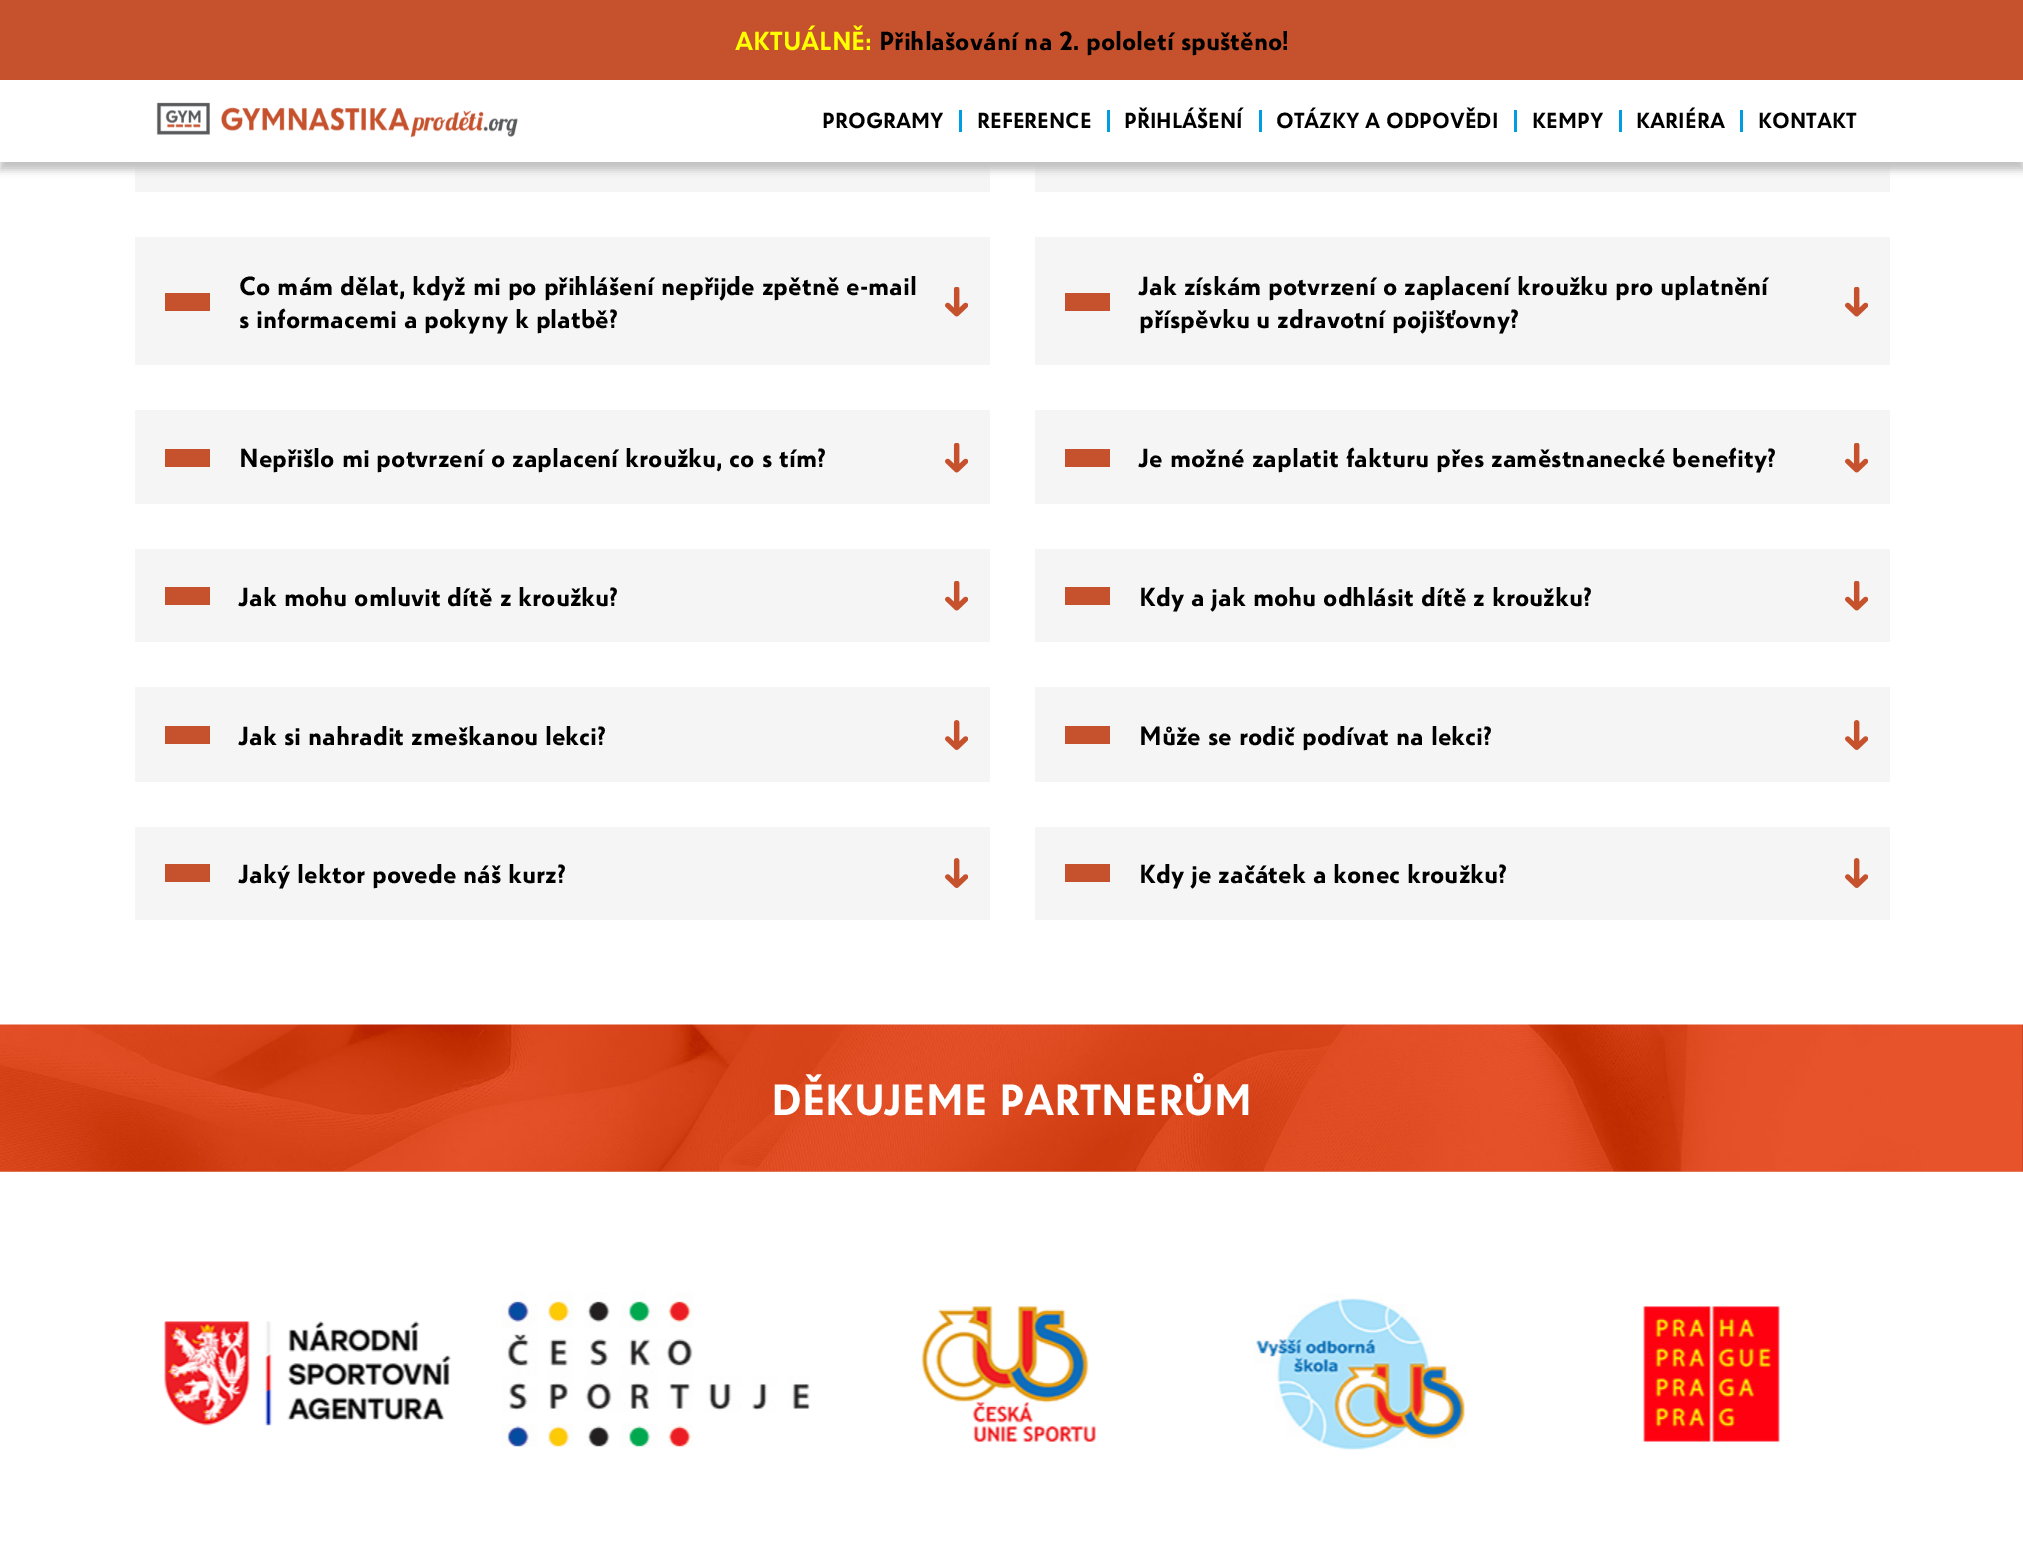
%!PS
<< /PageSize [2023 1557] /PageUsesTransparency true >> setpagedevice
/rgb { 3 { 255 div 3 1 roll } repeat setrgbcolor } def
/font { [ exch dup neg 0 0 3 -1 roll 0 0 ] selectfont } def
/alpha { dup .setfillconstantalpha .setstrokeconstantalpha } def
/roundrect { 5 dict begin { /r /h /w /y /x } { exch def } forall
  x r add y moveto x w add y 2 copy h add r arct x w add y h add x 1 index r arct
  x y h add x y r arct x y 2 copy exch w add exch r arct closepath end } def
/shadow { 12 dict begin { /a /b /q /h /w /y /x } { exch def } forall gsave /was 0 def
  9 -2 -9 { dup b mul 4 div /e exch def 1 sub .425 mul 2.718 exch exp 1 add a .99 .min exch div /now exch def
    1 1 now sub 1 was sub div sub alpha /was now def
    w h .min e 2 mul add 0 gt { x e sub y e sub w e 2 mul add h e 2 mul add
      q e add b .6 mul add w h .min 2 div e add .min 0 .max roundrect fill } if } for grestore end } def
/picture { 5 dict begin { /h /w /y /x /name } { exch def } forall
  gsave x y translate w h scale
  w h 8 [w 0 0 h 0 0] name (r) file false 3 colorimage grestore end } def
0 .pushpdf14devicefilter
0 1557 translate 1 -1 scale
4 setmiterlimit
255 255 255 rgb
0 0 2023 1557 rectfill
245 245 245 rgb
135 162 855 30 rectfill
1035 162 855 30 rectfill
192 192 192 rgb
0 8 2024 162 0 4 1 shadow
255 255 255 rgb
0 80 2023 82 rectfill
197 81 45 rgb
0 0 2023 80 rectfill
(img/1.rgb) 156 102 362 36 picture
[
  [959 110 3 22 0 157 224]
  [1107 110 3 22 0 157 224]
  [1259 110 3 22 0 157 224]
  [1514 110 3 22 0 157 224]
  [1619 110 3 22 0 157 224]
  [1740 110 3 22 0 157 224]
  [135 237 855 128 245 245 245]
  [165 293 45 18 197 81 45]
] { aload pop rgb rectfill } forall
(img/2.rgb) 945 287 23 30 picture
245 245 245 rgb
1035 237 855 128 rectfill
197 81 45 rgb
1065 293 45 18 rectfill
(img/2.rgb) 1845 287 23 30 picture
245 245 245 rgb
135 410 855 94 rectfill
197 81 45 rgb
165 449 45 18 rectfill
(img/2.rgb) 945 443 23 30 picture
245 245 245 rgb
1035 410 855 94 rectfill
197 81 45 rgb
1065 449 45 18 rectfill
(img/2.rgb) 1845 443 23 30 picture
245 245 245 rgb
135 549 855 93 rectfill
197 81 45 rgb
165 587 45 18 rectfill
(img/2.rgb) 945 581 23 30 picture
245 245 245 rgb
1035 549 855 93 rectfill
197 81 45 rgb
1065 587 45 18 rectfill
(img/2.rgb) 1845 581 23 30 picture
245 245 245 rgb
135 687 855 95 rectfill
197 81 45 rgb
165 726 45 18 rectfill
(img/3.rgb) 945 720 23 30 picture
245 245 245 rgb
1035 687 855 95 rectfill
197 81 45 rgb
1065 726 45 18 rectfill
(img/3.rgb) 1845 720 23 30 picture
245 245 245 rgb
135 827 855 93 rectfill
197 81 45 rgb
165 864 45 18 rectfill
(img/3.rgb) 945 858 23 30 picture
245 245 245 rgb
1035 827 855 93 rectfill
197 81 45 rgb
1065 864 45 18 rectfill
(img/3.rgb) 1845 858 23 30 picture
234 162 141 rgb
0 1171 2023 1 rectfill
(img/4.rgb) 0 1024 2023 148 picture
(img/5.rgb) 164 1321 287 105 picture
(img/6.rgb) 501 1292 309 155 picture
(img/7.rgb) 921 1306 175 136 picture
(img/8.rgb) 1253 1294 214 156 picture
(img/9.rgb) 1641 1306 139 138 picture
/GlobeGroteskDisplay-Bold 27 font
255 255 0 rgb
735 50 moveto (AKTUÁLNĚ:) show
0 0 0 rgb
879 50 moveto (Přihlašování na 2. pololetí spuštěno!) show
/GlobeGroteskDisplay-Bold 22.5 font
[
  [(PROGRAMY) 822 128]
  [(REFERENCE) 977 128]
  [(PŘIHLÁŠENÍ) 1124 128]
  [(OTÁZKY A ODPOVĚDI) 1276 128]
  [(KEMPY) 1532 128]
  [(KARIÉRA) 1636 128]
  [(KONTAKT) 1758 128]
] { aload pop moveto show } forall
/GlobeGroteskDisplay-Bold 27 font
[
  [(Co mám dělat, když mi po přihlášení nepřijde zpětně e-mail) 239 295]
  [(s informacemi a pokyny k platbě?) 239 328]
  [(Jak získám potvrzení o zaplacení kroužku pro uplatnění) 1139 295]
  [(příspěvku u zdravotní pojišťovny?) 1139 328]
  [(Nepřišlo mi potvrzení o zaplacení kroužku, co s tím?) 239 467]
  [(Je možné zaplatit fakturu přes zaměstnanecké benefity?) 1139 467]
  [(Jak mohu omluvit dítě z kroužku?) 239 606]
  [(Kdy a jak mohu odhlásit dítě z kroužku?) 1139 606]
  [(Jak si nahradit zmeškanou lekci?) 239 745]
  [(Může se rodič podívat na lekci?) 1139 745]
  [(Jaký lektor povede náš kurz?) 239 883]
  [(Kdy je začátek a konec kroužku?) 1139 883]
] { aload pop moveto show } forall
/GlobeGroteskDisplay-Bold 45 font
255 255 255 rgb
771 1115 moveto (DĚKUJEME PARTNERŮM) show
.poppdf14devicefilter showpage
